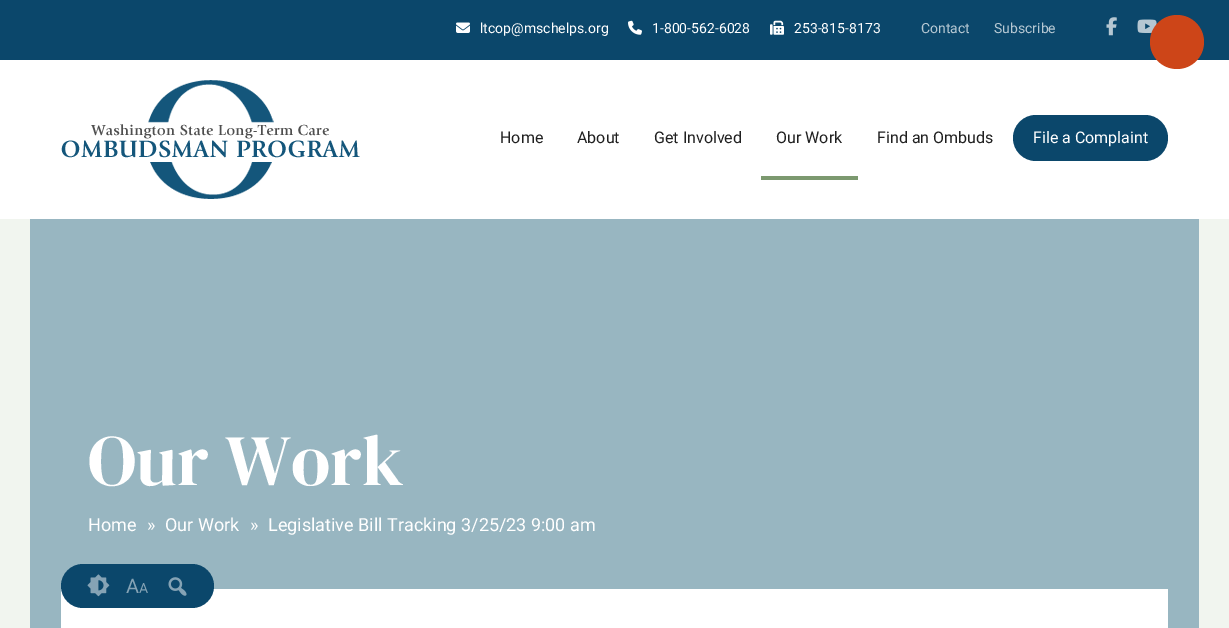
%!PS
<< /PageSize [1229 628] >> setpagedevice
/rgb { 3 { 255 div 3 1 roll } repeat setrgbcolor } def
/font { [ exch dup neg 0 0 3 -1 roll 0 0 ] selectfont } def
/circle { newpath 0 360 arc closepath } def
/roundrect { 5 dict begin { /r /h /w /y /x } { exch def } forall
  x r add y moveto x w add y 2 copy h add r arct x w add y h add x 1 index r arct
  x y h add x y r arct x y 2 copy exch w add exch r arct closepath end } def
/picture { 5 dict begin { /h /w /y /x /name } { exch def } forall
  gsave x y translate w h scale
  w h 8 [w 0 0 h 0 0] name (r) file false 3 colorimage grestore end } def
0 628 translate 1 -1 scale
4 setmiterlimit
241 245 239 rgb
0 0 1229 628 rectfill
255 255 255 rgb
0 60 1229 159 rectfill
11 71 107 rgb
0 0 1229 60 rectfill
(img/1.rgb) 456 22 14 11 picture
(img/2.rgb) 628 20 14 15 picture
(img/3.rgb) 770 20 14 15 picture
(img/4.rgb) 1106 17 11 19 picture
(img/5.rgb) 1137 19 20 14 picture
(img/6.rgb) 61 80 299 119 picture
124 153 111 rgb
761 176 97 4 rectfill
11 71 107 rgb
1013 115 155 46 23 roundrect fill
205 69 24 rgb
1177 42 27 circle fill
152 182 193 rgb
30 219 1169 409 rectfill
255 255 255 rgb
61 589 1107 39 rectfill
11 71 107 rgb
61 564 153 44 22 roundrect fill
(img/7.rgb) 87 574 23 23 picture
(img/8.rgb) 168 577 19 19 picture
/Roboto-Regular 14 font
255 255 255 rgb
[
  [(ltcop@mschelps.org) 480 33]
  [(1-800-562-6028) 652 33]
  [(253-815-8173) 794 33]
] { aload pop moveto show } forall
182 200 211 rgb
921 33 moveto (Contact) show
994 33 moveto (Subscribe) show
/Roboto-Regular 16 font
32 32 32 rgb
[
  [(Home) 500 143]
  [(About) 577 143]
  [(Get Involved) 654 143]
  [(Our Work) 776 143]
  [(Find an Ombuds) 877 143]
] { aload pop moveto show } forall
255 255 255 rgb
1033 143 moveto (File a Complaint) show
/DMSerifDisplay-Regular 72 font
88 485 moveto (Our Work) show
/Roboto-Regular 18 font
[
  [(Home) 88 531]
  [(») 147 531]
  [(Our Work) 165 531]
  [(») 250 531]
  [(Legislative Bill Tracking 3/25/23 9:00 am) 268 531]
] { aload pop moveto show } forall
/Roboto-Regular 20 font
133 163 181 rgb
126 593 moveto (A) show
/Roboto-Regular 14 font
139 593 moveto (A) show
showpage
